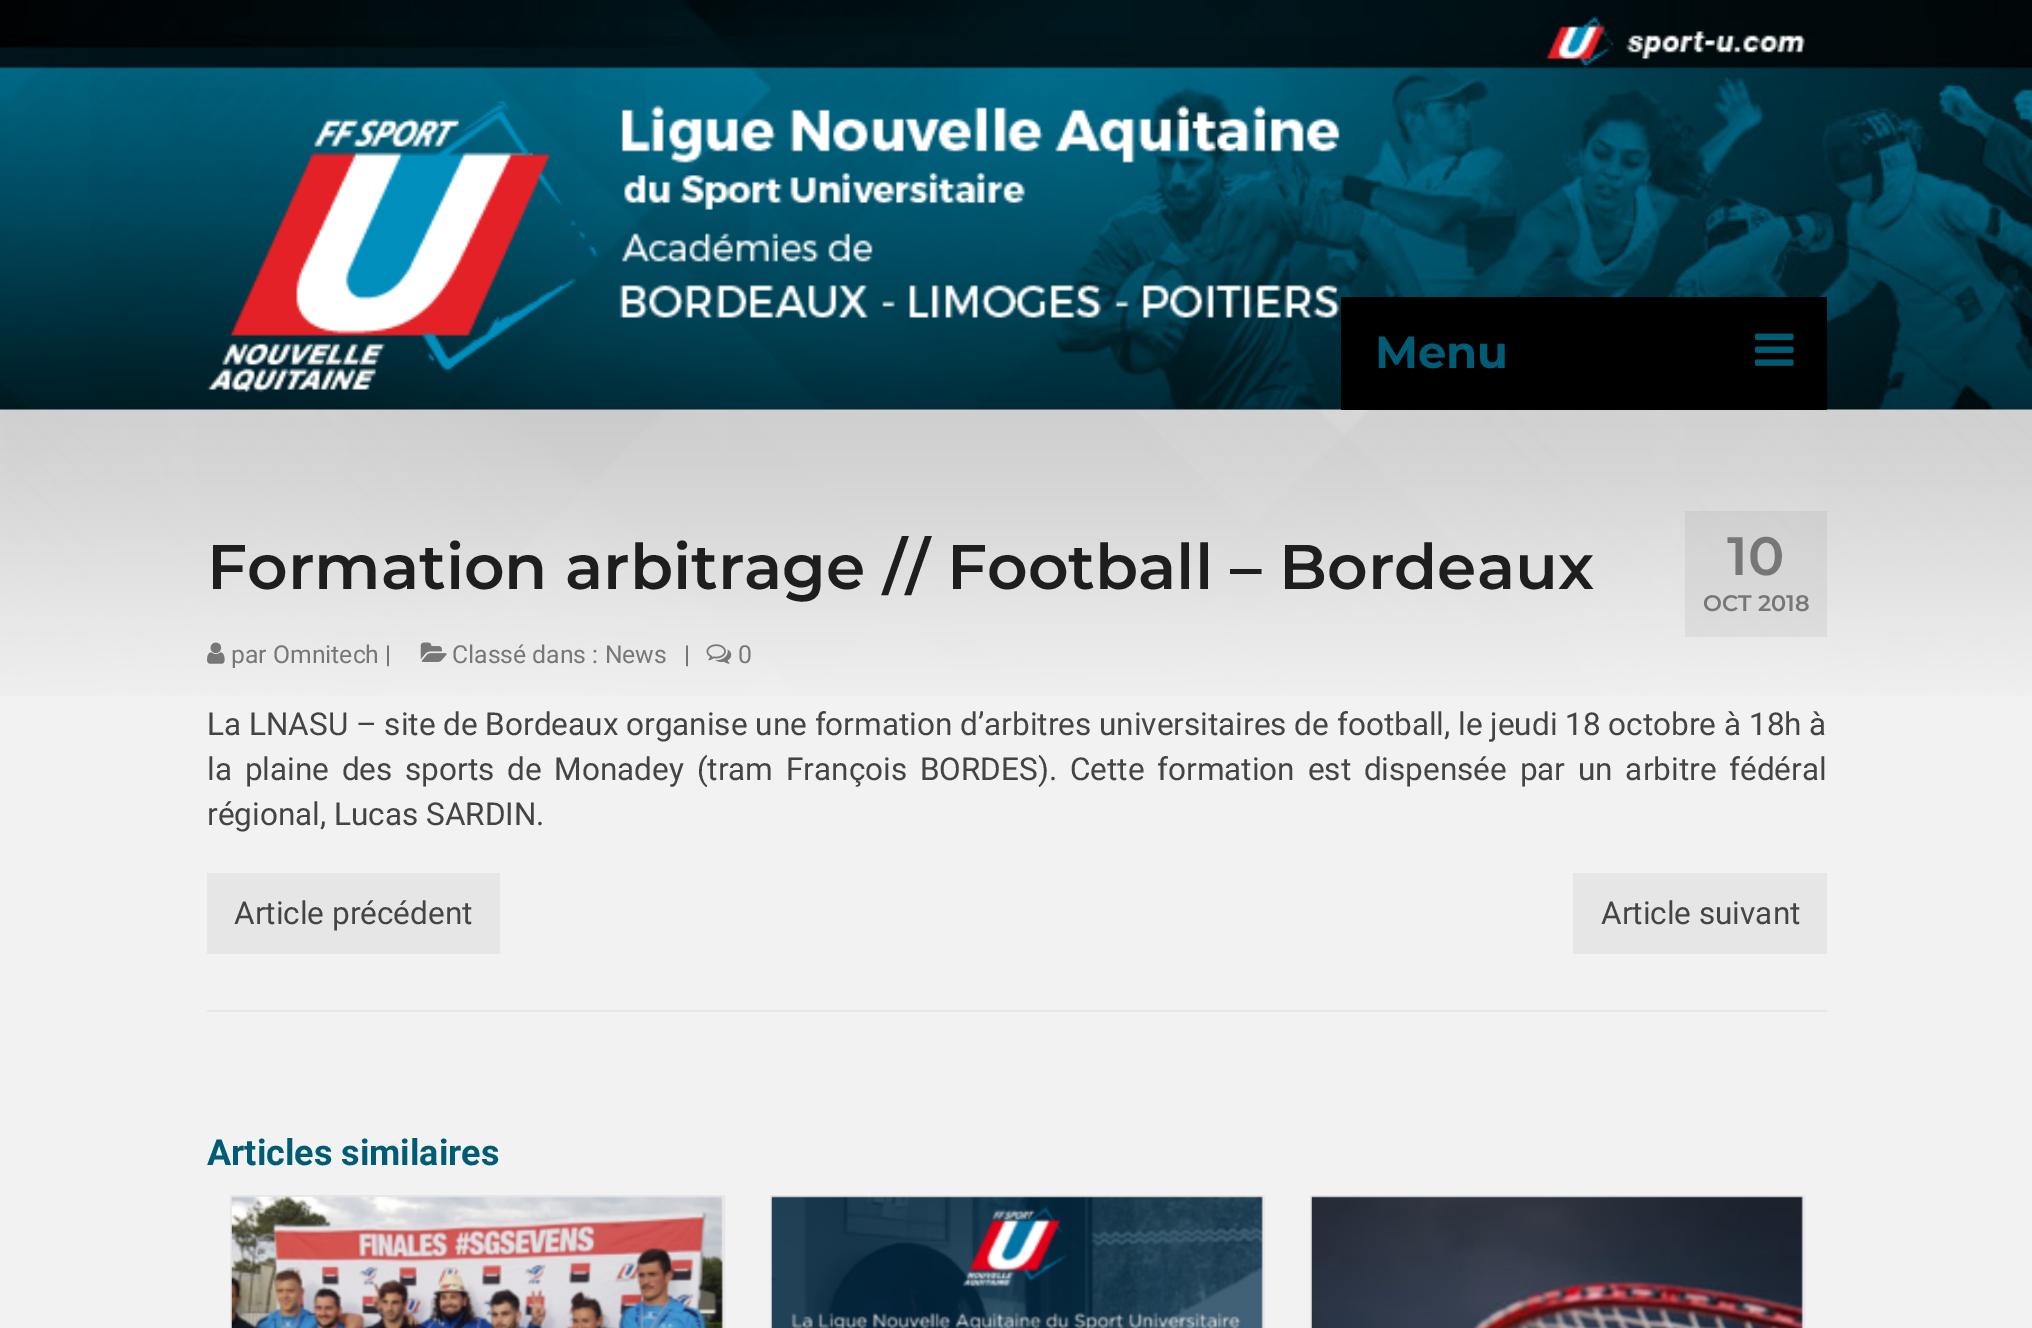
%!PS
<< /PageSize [2032 1328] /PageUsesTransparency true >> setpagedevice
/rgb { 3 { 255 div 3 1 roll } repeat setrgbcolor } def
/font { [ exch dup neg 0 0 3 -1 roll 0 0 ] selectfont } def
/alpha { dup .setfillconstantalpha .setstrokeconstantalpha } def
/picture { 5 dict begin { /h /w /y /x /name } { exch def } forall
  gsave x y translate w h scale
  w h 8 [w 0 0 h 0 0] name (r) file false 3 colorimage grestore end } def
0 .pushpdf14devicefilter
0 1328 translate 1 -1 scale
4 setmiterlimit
255 255 255 rgb
0 0 2032 1328 rectfill
(img/1.rgb) 0 0 2032 410 picture
(img/2.rgb) 1545 15 260 51 picture
(img/3.rgb) 207 100 1133 293 picture
(img/5.rgb) 0 409 2032 287 picture
0 0 0 rgb
1341 297 486 113 rectfill
(img/4.rgb) 1755 333 39 33 picture
242 242 242 rgb
0 696 2032 632 rectfill
(img/6.rgb) 207 642 18 22 picture
(img/7.rgb) 420 642 27 20 picture
(img/8.rgb) 706 644 26 20 picture
0.05 alpha
[
  [1685 511 142 126 0 0 0]
] { aload pop rgb rectfill } forall
1 alpha
[
  [207 1010 1620 2 230 230 230]
  [207 873 293 81 230 230 230]
  [1573 873 254 81 230 230 230]
] { aload pop rgb rectfill } forall
2 setlinewidth
231 1196 493 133 rectstroke
(img/9.rgb) 231 1196 492 132 picture
771 1196 493 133 rectstroke
(img/10.rgb) 771 1196 492 132 picture
1311 1196 493 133 rectstroke
(img/11.rgb) 1311 1196 492 132 picture
/Montserrat-Bold 45 font
0 91 116 rgb
1375 368 moveto (Menu) show
/Montserrat-SemiBold 63 font
30 30 30 rgb
207 589 moveto (Formation arbitrage // Football – Bordeaux) show
/Roboto-Regular 24.75 font
119 119 119 rgb
[
  [(par Omnitech |) 231 663]
  [(Classé dans : News) 452 663]
  [(|) 684 663]
  [(0) 738 663]
] { aload pop moveto show } forall
/Montserrat-SemiBold 54 font
1727 575 moveto (10) show
/Montserrat-SemiBold 22.5 font
1703 611 moveto (OCT 2018) show
/Roboto-Regular 31.5 font
68 68 68 rgb
207 735 moveto (La LNASU – site de Bordeaux organise une formation d’arbitres universitaires de football, le jeudi 18 octobre à 18h à) show
207 780 moveto 5 0 32 (la plaine des sports de Monadey \(tram François BORDES\). Cette formation est dispensée par un arbitre fédéral) widthshow
[
  [(régional, Lucas SARDIN.) 207 825]
  [(Article précédent) 234 924]
  [(Article suivant) 1601 924]
] { aload pop moveto show } forall
/Roboto-Bold 36 font
0 91 116 rgb
207 1165 moveto (Articles similaires) show
.poppdf14devicefilter showpage
